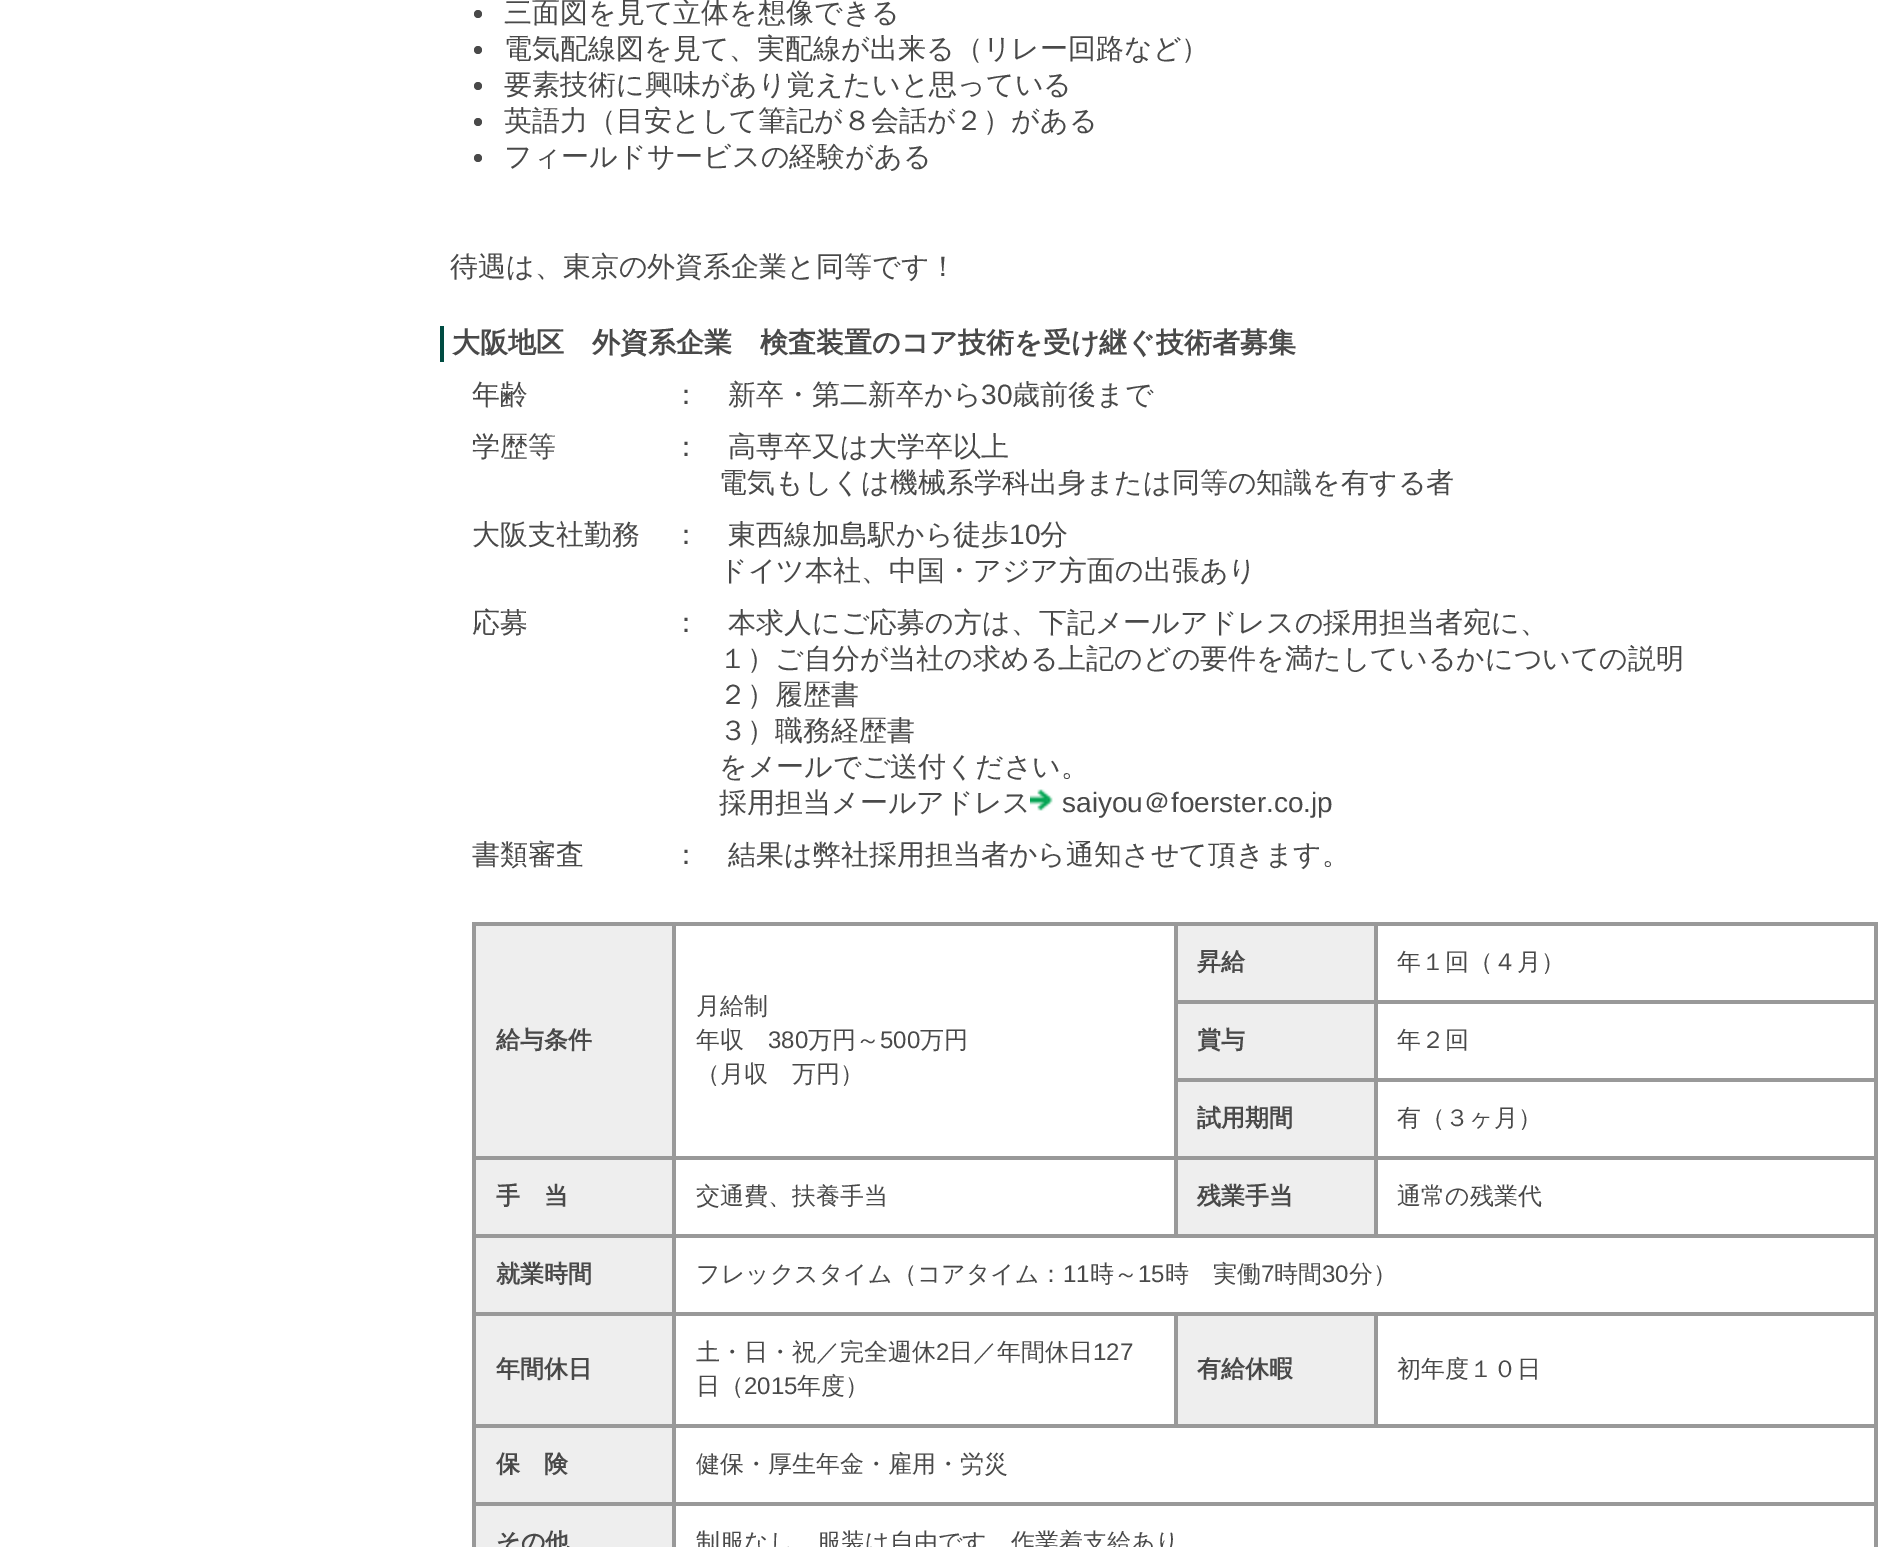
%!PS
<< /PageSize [1889 1547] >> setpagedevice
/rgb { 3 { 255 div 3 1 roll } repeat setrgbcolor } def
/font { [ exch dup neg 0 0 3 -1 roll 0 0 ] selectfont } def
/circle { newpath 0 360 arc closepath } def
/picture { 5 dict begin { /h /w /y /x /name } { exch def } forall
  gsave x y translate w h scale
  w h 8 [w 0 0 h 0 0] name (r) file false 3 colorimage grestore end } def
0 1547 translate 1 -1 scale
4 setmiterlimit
255 255 255 rgb
0 0 1889 1547 rectfill
73 73 73 rgb
478 14 4 circle fill
478 50 4 circle fill
478 86 4 circle fill
478 122 4 circle fill
478 158 4 circle fill
0 76 66 rgb
440 326 4 36 rectfill
(img/1.rgb) 1030 789 23 22 picture
[
  [472 922 1406 4 153 153 153]
  [472 922 4 625 153 153 153]
  [1178 926 196 74 238 238 238]
  [1874 922 4 625 153 153 153]
  [1374 1234 504 4 153 153 153]
  [1374 1156 4 82 153 153 153]
  [1374 1156 504 4 153 153 153]
  [1374 1078 4 82 153 153 153]
  [1374 1078 504 4 153 153 153]
  [1374 1000 4 82 153 153 153]
  [1374 1000 504 4 153 153 153]
  [1374 922 4 82 153 153 153]
  [1174 1000 204 4 153 153 153]
  [476 926 196 230 238 238 238]
  [1174 1078 204 4 153 153 153]
  [1174 1234 204 4 153 153 153]
  [1174 1156 4 82 153 153 153]
  [1174 1156 204 4 153 153 153]
  [1174 922 4 238 153 153 153]
  [1374 1424 504 4 153 153 153]
  [1374 1312 4 116 153 153 153]
  [1174 1424 204 4 153 153 153]
  [1174 1312 4 116 153 153 153]
  [672 1502 4 45 153 153 153]
  [672 1502 1206 4 153 153 153]
  [672 1424 4 82 153 153 153]
  [672 1424 506 4 153 153 153]
  [672 1312 4 116 153 153 153]
  [672 1312 1206 4 153 153 153]
  [672 1234 4 82 153 153 153]
  [672 1234 506 4 153 153 153]
  [672 1156 4 82 153 153 153]
  [672 1156 506 4 153 153 153]
  [672 922 4 238 153 153 153]
  [472 1156 204 4 153 153 153]
  [1178 1004 196 74 238 238 238]
  [1178 1082 196 74 238 238 238]
  [476 1160 196 74 238 238 238]
  [472 1234 204 4 153 153 153]
  [1178 1160 196 74 238 238 238]
  [476 1238 196 74 238 238 238]
  [472 1312 204 4 153 153 153]
  [476 1316 196 108 238 238 238]
  [472 1424 204 4 153 153 153]
  [1178 1316 196 108 238 238 238]
  [476 1428 196 74 238 238 238]
  [472 1502 204 4 153 153 153]
  [476 1506 196 41 238 238 238]
] { aload pop rgb rectfill } forall
/WenQuanYiZenHei-Medium 28 font
73 73 73 rgb
[
  [(三面図を見て立体を想像できる) 504 22]
  [(電気配線図を見て、実配線が出来る（リレー回路など）) 504 58]
  [(要素技術に興味があり覚えたいと思っている) 504 94]
  [(英語力（目安として筆記が８会話が２）がある) 504 130]
  [(フィールドサービスの経験がある) 504 166]
  [(待遇は、東京の外資系企業と同等です！) 450 276]
] { aload pop moveto show } forall
/WenQuanYiZenHei-Bold 28 font
452 352 moveto (大阪地区　外資系企業　検査装置のコア技術を受け継ぐ技術者募集) show
/WenQuanYiZenHei-Medium 28 font
472 404 moveto (年齢) show
672 404 moveto (：　新卒・第二新卒から) show
/LiberationSans-Regular 28 font
981 404 moveto (30) show
/WenQuanYiZenHei-Medium 28 font
[
  [(歳前後まで) 1012 404]
  [(学歴等) 472 456]
  [(：　高専卒又は大学卒以上) 672 456]
  [(電気もしくは機械系学科出身または同等の知識を有する者) 719 492]
  [(大阪支社勤務) 472 544]
  [(：　東西線加島駅から徒歩) 672 544]
] { aload pop moveto show } forall
/LiberationSans-Regular 28 font
1009 544 moveto (10) show
/WenQuanYiZenHei-Medium 28 font
[
  [(分) 1040 544]
  [(ドイツ本社、中国・アジア方面の出張あり) 719 580]
  [(応募) 472 632]
  [(：　本求人にご応募の方は、下記メールアドレスの採用担当者宛に、) 672 632]
  [(１）ご自分が当社の求める上記のどの要件を満たしているかについての説明) 719 668]
  [(２）履歴書) 719 704]
  [(３）職務経歴書) 719 740]
  [(をメールでご送付ください。) 719 776]
  [(採用担当メールアドレス) 719 812]
] { aload pop moveto show } forall
/LiberationSans-Regular 28 font
1062 812 moveto (saiyou) show
/WenQuanYiZenHei-Medium 28 font
1143 812 moveto (＠) show
/LiberationSans-Regular 28 font
1171 812 moveto (foerster.co.jp) show
/WenQuanYiZenHei-Medium 28 font
472 864 moveto (書類審査) show
672 864 moveto (：　結果は弊社採用担当者から通知させて頂きます。) show
/WenQuanYiZenHei-Bold 24 font
1197 970 moveto (昇給) show
/WenQuanYiZenHei-Medium 24 font
1397 970 moveto (年１回（４月）) show
/WenQuanYiZenHei-Bold 24 font
496 1048 moveto (給与条件) show
/WenQuanYiZenHei-Medium 24 font
696 1014 moveto (月給制) show
696 1048 moveto (年収) show
/LiberationSans-Regular 24 font
768 1048 moveto (380) show
/WenQuanYiZenHei-Medium 24 font
808 1048 moveto (万円～) show
/LiberationSans-Regular 24 font
880 1048 moveto (500) show
/WenQuanYiZenHei-Medium 24 font
920 1048 moveto (万円) show
696 1082 moveto (（月収　万円）) show
/WenQuanYiZenHei-Bold 24 font
1197 1048 moveto (賞与) show
/WenQuanYiZenHei-Medium 24 font
1397 1048 moveto (年２回) show
/WenQuanYiZenHei-Bold 24 font
1197 1126 moveto (試用期間) show
/WenQuanYiZenHei-Medium 24 font
1397 1126 moveto (有（３ヶ月）) show
/WenQuanYiZenHei-Bold 24 font
496 1204 moveto (手　当) show
/WenQuanYiZenHei-Medium 24 font
696 1204 moveto (交通費、扶養手当) show
/WenQuanYiZenHei-Bold 24 font
1197 1204 moveto (残業手当) show
/WenQuanYiZenHei-Medium 24 font
1397 1204 moveto (通常の残業代) show
/WenQuanYiZenHei-Bold 24 font
496 1282 moveto (就業時間) show
/WenQuanYiZenHei-Medium 24 font
696 1282 moveto (フレックスタイム（コアタイム：) show
/LiberationSans-Regular 24 font
1063 1282 moveto (11) show
/WenQuanYiZenHei-Medium 24 font
1090 1282 moveto (時～) show
/LiberationSans-Regular 24 font
1138 1282 moveto (15) show
/WenQuanYiZenHei-Medium 24 font
1165 1282 moveto (時　実働) show
/LiberationSans-Regular 24 font
1261 1282 moveto (7) show
/WenQuanYiZenHei-Medium 24 font
1274 1282 moveto (時間) show
/LiberationSans-Regular 24 font
1322 1282 moveto (30) show
/WenQuanYiZenHei-Medium 24 font
1349 1282 moveto (分）) show
/WenQuanYiZenHei-Bold 24 font
496 1377 moveto (年間休日) show
/WenQuanYiZenHei-Medium 24 font
696 1360 moveto (土・日・祝／完全週休) show
/LiberationSans-Regular 24 font
936 1360 moveto (2) show
/WenQuanYiZenHei-Medium 24 font
949 1360 moveto (日／年間休日) show
/LiberationSans-Regular 24 font
1093 1360 moveto (127) show
/WenQuanYiZenHei-Medium 24 font
696 1394 moveto (日（) show
/LiberationSans-Regular 24 font
744 1394 moveto (2015) show
/WenQuanYiZenHei-Medium 24 font
797 1394 moveto (年度）) show
/WenQuanYiZenHei-Bold 24 font
1197 1377 moveto (有給休暇) show
/WenQuanYiZenHei-Medium 24 font
1397 1377 moveto (初年度１０日) show
/WenQuanYiZenHei-Bold 24 font
496 1472 moveto (保　険) show
/WenQuanYiZenHei-Medium 24 font
696 1472 moveto (健保・厚生年金・雇用・労災) show
/WenQuanYiZenHei-Bold 24 font
496 1550 moveto (その他) show
/WenQuanYiZenHei-Medium 24 font
696 1550 moveto (制服なし、服装は自由です。作業着支給あり) show
showpage
